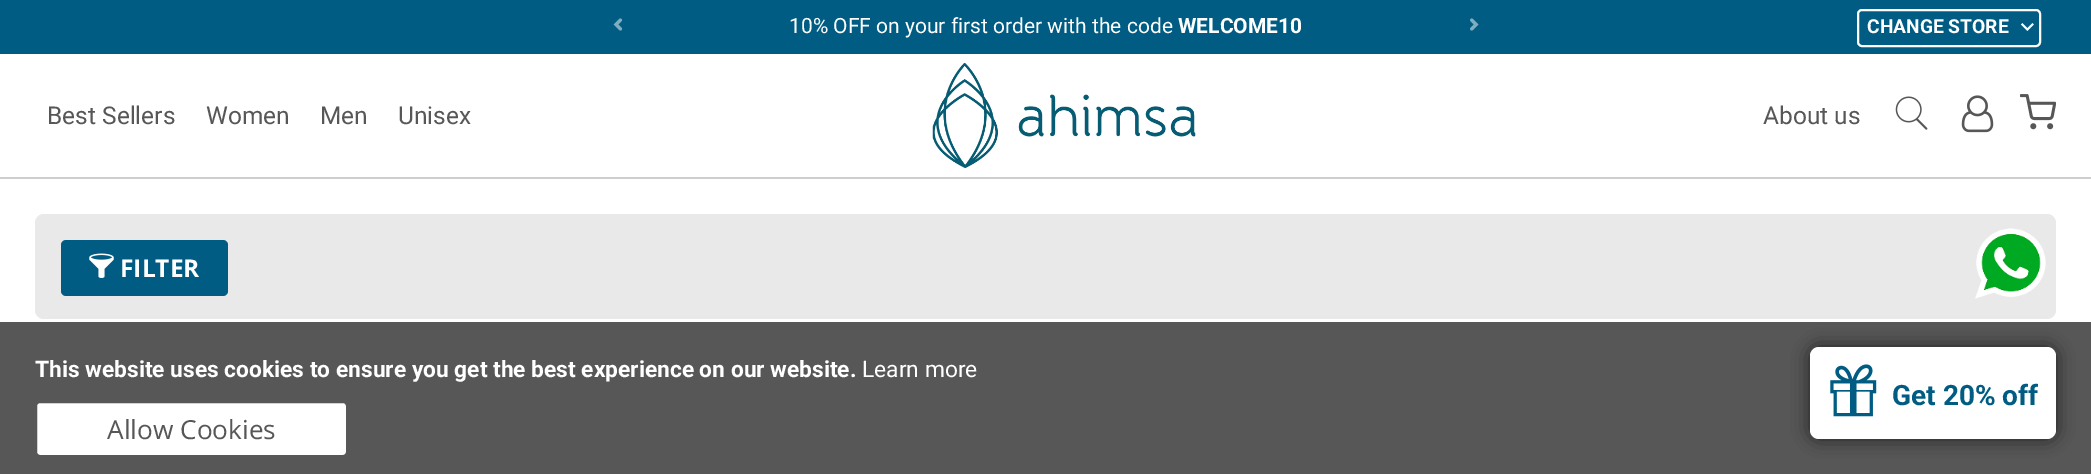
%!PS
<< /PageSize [2091 474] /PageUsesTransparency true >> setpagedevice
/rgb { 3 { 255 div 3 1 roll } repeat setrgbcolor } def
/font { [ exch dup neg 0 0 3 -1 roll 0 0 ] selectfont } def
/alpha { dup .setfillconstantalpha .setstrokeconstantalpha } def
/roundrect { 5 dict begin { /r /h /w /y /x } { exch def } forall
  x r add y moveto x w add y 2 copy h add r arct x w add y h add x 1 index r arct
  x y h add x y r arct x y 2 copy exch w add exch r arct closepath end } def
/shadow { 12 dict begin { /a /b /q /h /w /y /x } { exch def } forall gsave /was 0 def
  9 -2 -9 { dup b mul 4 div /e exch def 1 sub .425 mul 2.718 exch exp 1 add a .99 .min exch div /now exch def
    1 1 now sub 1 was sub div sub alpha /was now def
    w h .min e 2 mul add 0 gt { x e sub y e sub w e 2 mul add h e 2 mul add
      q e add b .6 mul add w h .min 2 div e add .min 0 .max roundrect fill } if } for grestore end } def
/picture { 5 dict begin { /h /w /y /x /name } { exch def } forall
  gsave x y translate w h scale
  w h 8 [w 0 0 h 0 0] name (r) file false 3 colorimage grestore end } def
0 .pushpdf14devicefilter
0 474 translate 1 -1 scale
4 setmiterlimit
255 255 255 rgb
0 0 2091 474 rectfill
206 206 209 rgb
0 177 2091 2 rectfill
0 92 130 rgb
0 0 2091 54 rectfill
(img/1.rgb) 613 18 10 13 picture
(img/2.rgb) 1470 18 9 13 picture
255 255 255 rgb
2 setlinewidth
1858 10 182 36 4 roundrect stroke
(img/3.rgb) 2020 23 14 8 picture
(img/4.rgb) 932 63 264 105 picture
(img/5.rgb) 1895 96 33 34 picture
(img/6.rgb) 1961 95 33 38 picture
(img/7.rgb) 2020 94 36 36 picture
233 233 233 rgb
35 214 2021 105 9 roundrect fill
0 92 130 rgb
61 240 167 56 5 roundrect fill
(img/8.rgb) 89 253 25 25 picture
(img/9.rgb) 1975 228 71 71 picture
87 87 87 rgb
0 322 2091 152 rectfill
255 255 255 rgb
36 402 311 54 4 roundrect gsave fill grestore
87 87 87 rgb
stroke
0 0 0 rgb
1810 347 246 92 9 9 0.63 shadow
255 255 255 rgb
1810 347 246 92 9 roundrect fill
(img/10.rgb) 1830 364 47 53 picture
/Roboto-Regular 21 font
789 33 moveto (10% OFF on your first order with the code) show
/Roboto-Bold 21 font
1178 33 moveto (WELCOME10) show
/Roboto-Bold 19.25 font
1867 33 moveto (CHANGE STORE) show
/Roboto-Regular 24.5 font
87 87 87 rgb
[
  [(Best Sellers) 47 124]
  [(Women) 206 124]
  [(Men) 320 124]
  [(Unisex) 398 124]
  [(About us) 1763 124]
] { aload pop moveto show } forall
/OpenSans-Bold 24.5 font
255 255 255 rgb
120 277 moveto (FILTER) show
/Roboto-Bold 22.75 font
35 377 moveto (This website uses cookies to ensure you get the best experience on our website.) show
/Roboto-Regular 22.75 font
862 377 moveto (Learn more) show
/OpenSans-Regular 26.25 font
87 87 87 rgb
107 439 moveto (Allow Cookies) show
/Roboto-Bold 28 font
0 92 130 rgb
1892 405 moveto (Get 20% off) show
.poppdf14devicefilter showpage
